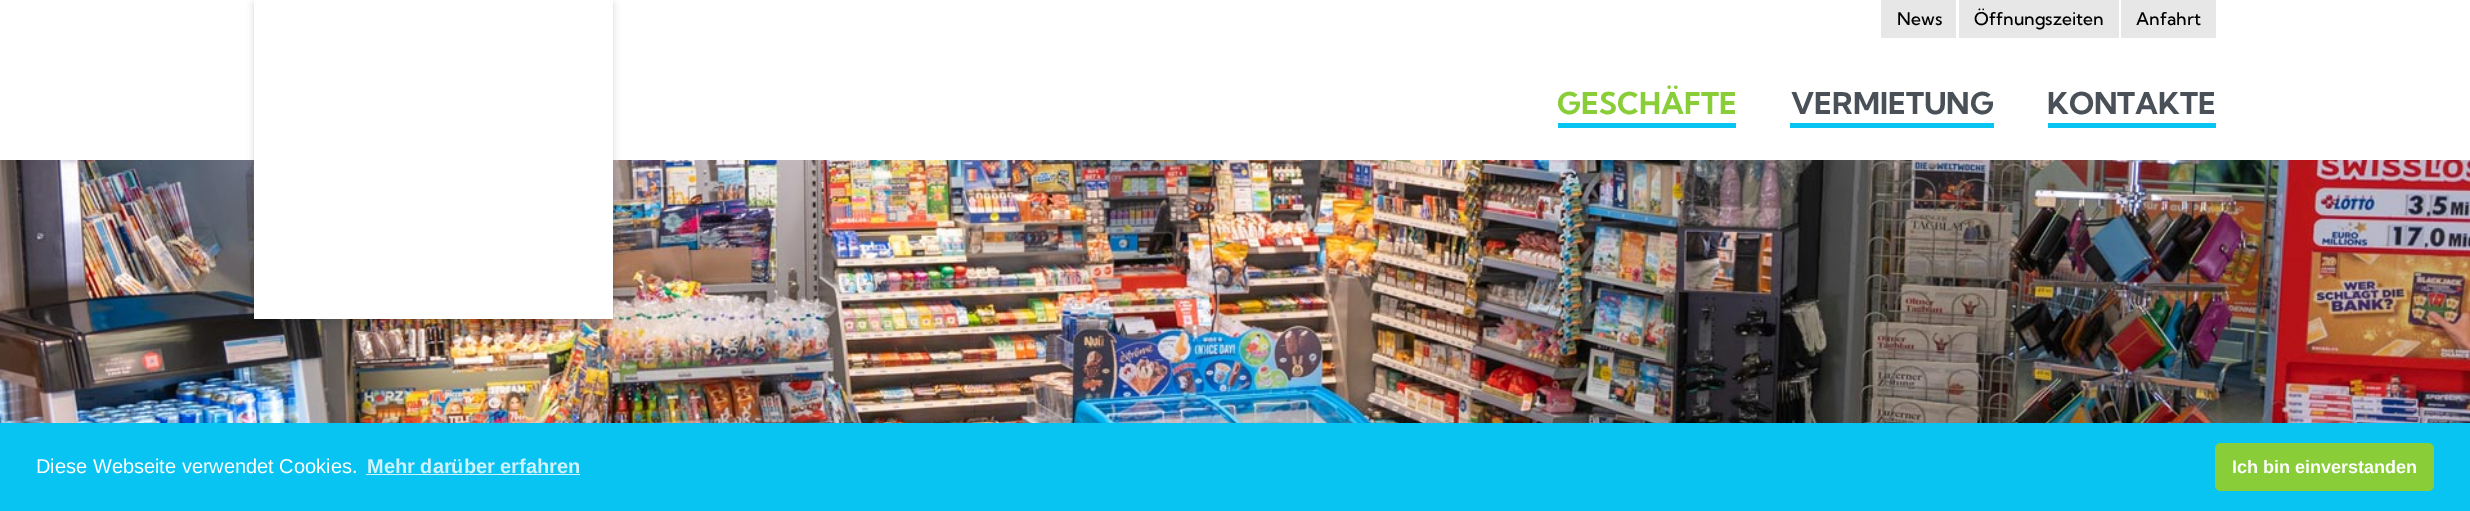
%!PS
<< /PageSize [2470 511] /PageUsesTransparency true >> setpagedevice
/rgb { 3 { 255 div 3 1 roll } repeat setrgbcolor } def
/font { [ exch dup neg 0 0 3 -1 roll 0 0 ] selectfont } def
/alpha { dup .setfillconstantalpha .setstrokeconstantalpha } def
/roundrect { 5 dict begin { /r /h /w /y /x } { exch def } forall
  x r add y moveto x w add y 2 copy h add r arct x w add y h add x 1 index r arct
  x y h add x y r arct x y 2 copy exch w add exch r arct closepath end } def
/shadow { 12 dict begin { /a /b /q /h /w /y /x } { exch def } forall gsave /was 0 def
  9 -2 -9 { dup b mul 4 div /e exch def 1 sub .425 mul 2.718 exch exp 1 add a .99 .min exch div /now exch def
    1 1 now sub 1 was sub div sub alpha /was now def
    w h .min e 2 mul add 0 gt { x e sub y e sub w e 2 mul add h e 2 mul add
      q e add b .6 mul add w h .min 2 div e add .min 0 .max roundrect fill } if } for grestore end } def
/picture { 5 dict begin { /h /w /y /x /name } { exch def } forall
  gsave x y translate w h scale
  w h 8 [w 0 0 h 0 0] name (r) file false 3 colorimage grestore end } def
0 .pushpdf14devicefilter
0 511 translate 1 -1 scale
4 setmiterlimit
255 255 255 rgb
0 0 2470 511 rectfill
(img/1.rgb) 0 160 2470 263 picture
0 0 0 rgb
254 4 359 319 0 4 0.16 shadow
[
  [254 0 359 319 255 255 255]
  [1881 0 75 38 232 231 232]
  [1959 0 160 38 232 231 232]
  [2121 0 95 38 232 231 232]
  [1558 123 178 5 8 196 243]
  [1790 123 204 5 8 196 243]
  [2048 123 168 5 8 196 243]
  [0 423 2470 88 8 196 243]
  [366 474 214 1 206 243 253]
] { aload pop rgb rectfill } forall
137 206 56 rgb
2215 443 219 48 6 roundrect fill
/KumbhSans-Medium 17.5 font
0 0 0 rgb
[
  [(News) 1897 25]
  [(Öffnungszeiten) 1974 25]
  [(Anfahrt) 2136 25]
] { aload pop moveto show } forall
/KumbhSans-Bold 30 font
137 206 56 rgb
1557 114 moveto (GESCHÄFTE) show
73 80 87 rgb
1791 114 moveto (VERMIETUNG) show
2047 114 moveto (KONTAKTE) show
/LiberationSans-Regular 20 font
255 255 255 rgb
36 473 moveto (Diese Webseite verwendet Cookies.) show
/LiberationSans-Bold 20 font
206 243 253 rgb
367 473 moveto (Mehr darüber erfahren) show
/LiberationSans-Bold 18 font
255 255 255 rgb
2232 473 moveto (Ich bin einverstanden) show
.poppdf14devicefilter showpage
